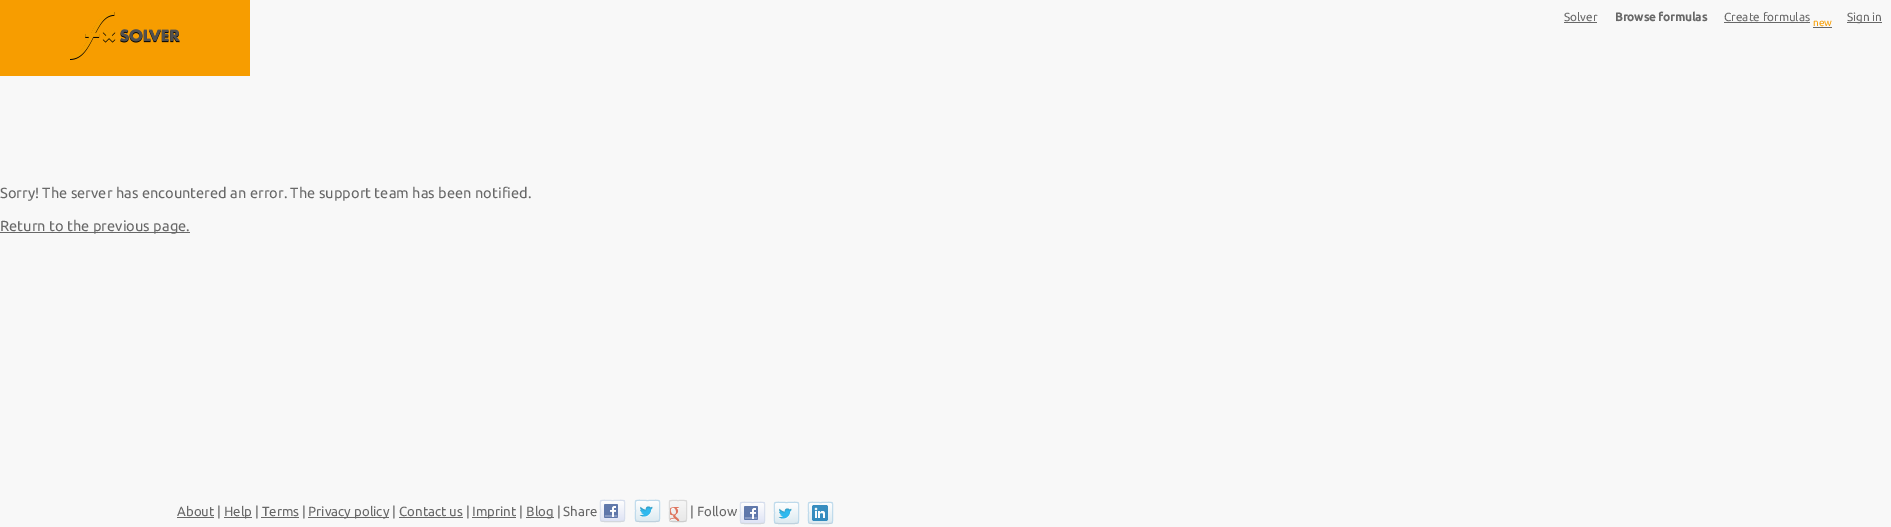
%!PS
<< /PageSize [1891 527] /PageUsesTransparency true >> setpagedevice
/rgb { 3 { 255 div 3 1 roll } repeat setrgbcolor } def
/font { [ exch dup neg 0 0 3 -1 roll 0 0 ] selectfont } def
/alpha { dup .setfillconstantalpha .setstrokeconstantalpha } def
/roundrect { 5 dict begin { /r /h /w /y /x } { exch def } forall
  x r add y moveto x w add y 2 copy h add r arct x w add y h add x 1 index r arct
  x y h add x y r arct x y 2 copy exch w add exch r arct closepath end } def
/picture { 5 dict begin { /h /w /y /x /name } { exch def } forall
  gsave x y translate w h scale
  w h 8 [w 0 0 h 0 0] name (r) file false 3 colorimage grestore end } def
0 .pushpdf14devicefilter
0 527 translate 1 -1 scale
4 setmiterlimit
248 248 248 rgb
0 0 1891 527 rectfill
247 157 0 rgb
0 0 250 76 rectfill
(img/1.rgb) 70 12 110 48 picture
[
  [1564 22 33 1 104 104 104]
  [1724 22 86 1 104 104 104]
  [1813 27 19 1 104 104 104]
  [1847 22 35 1 104 104 104]
  [0 232 190 1 104 104 104]
  [177 517 37 1 104 104 104]
  [224 517 28 1 104 104 104]
  [308 517 81 1 104 104 104]
  [472 517 44 1 104 104 104]
  [526 517 28 1 104 104 104]
] { aload pop rgb rectfill } forall
gsave
600 500 25 22 2 roundrect clip newpath
gsave 600 500 moveto 625 500 lineto 625 501 lineto 600 501 lineto closepath clip newpath
<< /ShadingType 2 /ColorSpace /DeviceRGB /Coords [613 481 613 501] /Extend [true true] /Function << /FunctionType 2 /Domain [0 1] /C0 [0.996 0.996 0.996] /C1 [0.871 0.89 0.961] /N 1 >> >> shfill grestore
gsave 600 501 moveto 625 501 lineto 625 521 lineto 600 521 lineto closepath clip newpath
<< /ShadingType 2 /ColorSpace /DeviceRGB /Coords [613 501 613 521] /Extend [true true] /Function << /FunctionType 2 /Domain [0 1] /C0 [0.996 0.996 0.996] /C1 [0.871 0.89 0.961] /N 1 >> >> shfill grestore
gsave 600 521 moveto 625 521 lineto 625 522 lineto 600 522 lineto closepath clip newpath
<< /ShadingType 2 /ColorSpace /DeviceRGB /Coords [613 521 613 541] /Extend [true true] /Function << /FunctionType 2 /Domain [0 1] /C0 [0.996 0.996 0.996] /C1 [0.871 0.89 0.961] /N 1 >> >> shfill grestore
grestore
211 215 220 rgb
624 521 moveto 623 522 602 522 601 521 curveto stroke
0.8 alpha
211 219 234 rgb
601 521 moveto 600 520 600.5 512.5 600.5 511 curveto 600.5 497.5 598 500.5 612.5 500.5 curveto 627 500.5 624.5 497.5 624.5 511 curveto 624.5 512.5 625 520 624 521 curveto stroke
1 alpha
(img/2.rgb) 604 504 14 14 picture
gsave
635 500 25 22 2 roundrect clip newpath
gsave 635 500 moveto 660 500 lineto 660 501 lineto 635 501 lineto closepath clip newpath
<< /ShadingType 2 /ColorSpace /DeviceRGB /Coords [648 481 648 501] /Extend [true true] /Function << /FunctionType 2 /Domain [0 1] /C0 [0.996 0.996 0.996] /C1 [0.863 0.918 0.945] /N 1 >> >> shfill grestore
gsave 635 501 moveto 660 501 lineto 660 521 lineto 635 521 lineto closepath clip newpath
<< /ShadingType 2 /ColorSpace /DeviceRGB /Coords [648 501 648 521] /Extend [true true] /Function << /FunctionType 2 /Domain [0 1] /C0 [0.996 0.996 0.996] /C1 [0.863 0.918 0.945] /N 1 >> >> shfill grestore
gsave 635 521 moveto 660 521 lineto 660 522 lineto 635 522 lineto closepath clip newpath
<< /ShadingType 2 /ColorSpace /DeviceRGB /Coords [648 521 648 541] /Extend [true true] /Function << /FunctionType 2 /Domain [0 1] /C0 [0.996 0.996 0.996] /C1 [0.863 0.918 0.945] /N 1 >> >> shfill grestore
grestore
191 209 221 rgb
659 521 moveto 658 522 637 522 636 521 curveto stroke
0.8 alpha
181 213 233 rgb
636 521 moveto 635 520 635.5 512.5 635.5 511 curveto 635.5 497.5 633 500.5 647.5 500.5 curveto 662 500.5 659.5 497.5 659.5 511 curveto 659.5 512.5 660 520 659 521 curveto stroke
1 alpha
(img/3.rgb) 639 506 14 11 picture
gsave
669 500 18 22 2 roundrect clip newpath
gsave 669 500 moveto 687 500 lineto 687 501 lineto 669 501 lineto closepath clip newpath
<< /ShadingType 2 /ColorSpace /DeviceRGB /Coords [678 481 678 501] /Extend [true true] /Function << /FunctionType 2 /Domain [0 1] /C0 [0.965 0.965 0.965] /C1 [0.91 0.91 0.91] /N 1 >> >> shfill grestore
gsave 669 501 moveto 687 501 lineto 687 521 lineto 669 521 lineto closepath clip newpath
<< /ShadingType 2 /ColorSpace /DeviceRGB /Coords [678 501 678 521] /Extend [true true] /Function << /FunctionType 2 /Domain [0 1] /C0 [0.965 0.965 0.965] /C1 [0.91 0.91 0.91] /N 1 >> >> shfill grestore
grestore
204 204 204 rgb
686 521 moveto 685 522 671 522 670 521 curveto stroke
0.8 alpha
213 213 213 rgb
670 521 moveto 669 520 669.5 512.5 669.5 511 curveto 669.5 499 667 500.5 678 500.5 curveto 689 500.5 686.5 499 686.5 511 curveto 686.5 512.5 687 520 686 521 curveto stroke
1 alpha
(img/4.rgb) 670 507 10 14 picture
gsave
740 502 25 22 2 roundrect clip newpath
gsave 740 502 moveto 765 502 lineto 765 503 lineto 740 503 lineto closepath clip newpath
<< /ShadingType 2 /ColorSpace /DeviceRGB /Coords [753 483 753 503] /Extend [true true] /Function << /FunctionType 2 /Domain [0 1] /C0 [0.996 0.996 0.996] /C1 [0.871 0.89 0.961] /N 1 >> >> shfill grestore
gsave 740 503 moveto 765 503 lineto 765 523 lineto 740 523 lineto closepath clip newpath
<< /ShadingType 2 /ColorSpace /DeviceRGB /Coords [753 503 753 523] /Extend [true true] /Function << /FunctionType 2 /Domain [0 1] /C0 [0.996 0.996 0.996] /C1 [0.871 0.89 0.961] /N 1 >> >> shfill grestore
gsave 740 523 moveto 765 523 lineto 765 524 lineto 740 524 lineto closepath clip newpath
<< /ShadingType 2 /ColorSpace /DeviceRGB /Coords [753 523 753 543] /Extend [true true] /Function << /FunctionType 2 /Domain [0 1] /C0 [0.996 0.996 0.996] /C1 [0.871 0.89 0.961] /N 1 >> >> shfill grestore
grestore
211 215 220 rgb
764 523 moveto 763 524 742 524 741 523 curveto stroke
0.8 alpha
211 219 234 rgb
741 523 moveto 740 522 740.5 514.5 740.5 513 curveto 740.5 499.5 738 502.5 752.5 502.5 curveto 767 502.5 764.5 499.5 764.5 513 curveto 764.5 514.5 765 522 764 523 curveto stroke
1 alpha
(img/2.rgb) 744 506 14 14 picture
gsave
774 502 25 22 2 roundrect clip newpath
gsave 774 502 moveto 799 502 lineto 799 503 lineto 774 503 lineto closepath clip newpath
<< /ShadingType 2 /ColorSpace /DeviceRGB /Coords [787 483 787 503] /Extend [true true] /Function << /FunctionType 2 /Domain [0 1] /C0 [0.996 0.996 0.996] /C1 [0.863 0.918 0.945] /N 1 >> >> shfill grestore
gsave 774 503 moveto 799 503 lineto 799 523 lineto 774 523 lineto closepath clip newpath
<< /ShadingType 2 /ColorSpace /DeviceRGB /Coords [787 503 787 523] /Extend [true true] /Function << /FunctionType 2 /Domain [0 1] /C0 [0.996 0.996 0.996] /C1 [0.863 0.918 0.945] /N 1 >> >> shfill grestore
gsave 774 523 moveto 799 523 lineto 799 524 lineto 774 524 lineto closepath clip newpath
<< /ShadingType 2 /ColorSpace /DeviceRGB /Coords [787 523 787 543] /Extend [true true] /Function << /FunctionType 2 /Domain [0 1] /C0 [0.996 0.996 0.996] /C1 [0.863 0.918 0.945] /N 1 >> >> shfill grestore
grestore
191 209 221 rgb
798 523 moveto 797 524 776 524 775 523 curveto stroke
0.8 alpha
181 213 233 rgb
775 523 moveto 774 522 774.5 514.5 774.5 513 curveto 774.5 499.5 772 502.5 786.5 502.5 curveto 801 502.5 798.5 499.5 798.5 513 curveto 798.5 514.5 799 522 798 523 curveto stroke
1 alpha
(img/3.rgb) 778 508 14 11 picture
gsave
808 502 25 22 2 roundrect clip newpath
gsave 808 502 moveto 833 502 lineto 833 503 lineto 808 503 lineto closepath clip newpath
<< /ShadingType 2 /ColorSpace /DeviceRGB /Coords [821 483 821 503] /Extend [true true] /Function << /FunctionType 2 /Domain [0 1] /C0 [0.996 0.996 0.996] /C1 [0.863 0.918 0.945] /N 1 >> >> shfill grestore
gsave 808 503 moveto 833 503 lineto 833 523 lineto 808 523 lineto closepath clip newpath
<< /ShadingType 2 /ColorSpace /DeviceRGB /Coords [821 503 821 523] /Extend [true true] /Function << /FunctionType 2 /Domain [0 1] /C0 [0.996 0.996 0.996] /C1 [0.863 0.918 0.945] /N 1 >> >> shfill grestore
gsave 808 523 moveto 833 523 lineto 833 524 lineto 808 524 lineto closepath clip newpath
<< /ShadingType 2 /ColorSpace /DeviceRGB /Coords [821 523 821 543] /Extend [true true] /Function << /FunctionType 2 /Domain [0 1] /C0 [0.996 0.996 0.996] /C1 [0.863 0.918 0.945] /N 1 >> >> shfill grestore
grestore
191 209 221 rgb
832 523 moveto 831 524 810 524 809 523 curveto stroke
0.8 alpha
181 213 233 rgb
809 523 moveto 808 522 808.5 514.5 808.5 513 curveto 808.5 499.5 806 502.5 820.5 502.5 curveto 835 502.5 832.5 499.5 832.5 513 curveto 832.5 514.5 833 522 832 523 curveto stroke
1 alpha
(img/5.rgb) 812 505 16 16 picture
104 104 104 rgb
261 517 38 1 rectfill
399 517 64 1 rectfill
/Ubuntu-Regular 11.75 font
1564 21 moveto (Solver) show
/Ubuntu-Bold 11.75 font
1615 21 moveto (Browse formulas) show
/Ubuntu-Regular 11.75 font
1724 21 moveto (Create formulas) show
/Ubuntu-Regular 10 font
247 157 0 rgb
1813 26 moveto (new) show
/Ubuntu-Regular 11.75 font
104 104 104 rgb
1847 21 moveto (Sign in) show
/Ubuntu-Regular 14.65 font
0 198 moveto (Sorry! The server has encountered an error. The support team has been notified.) show
0 231 moveto (Return to the previous page.) show
/Ubuntu-Regular 13.25 font
[
  [(About |) 177 516]
  [(Help | Terms |) 224 516]
  [(Privacy policy | Contact us |) 308 516]
  [(Imprint |) 472 516]
  [(Blog | Share) 526 516]
  [(| Follow) 690 516]
] { aload pop moveto show } forall
.poppdf14devicefilter showpage
